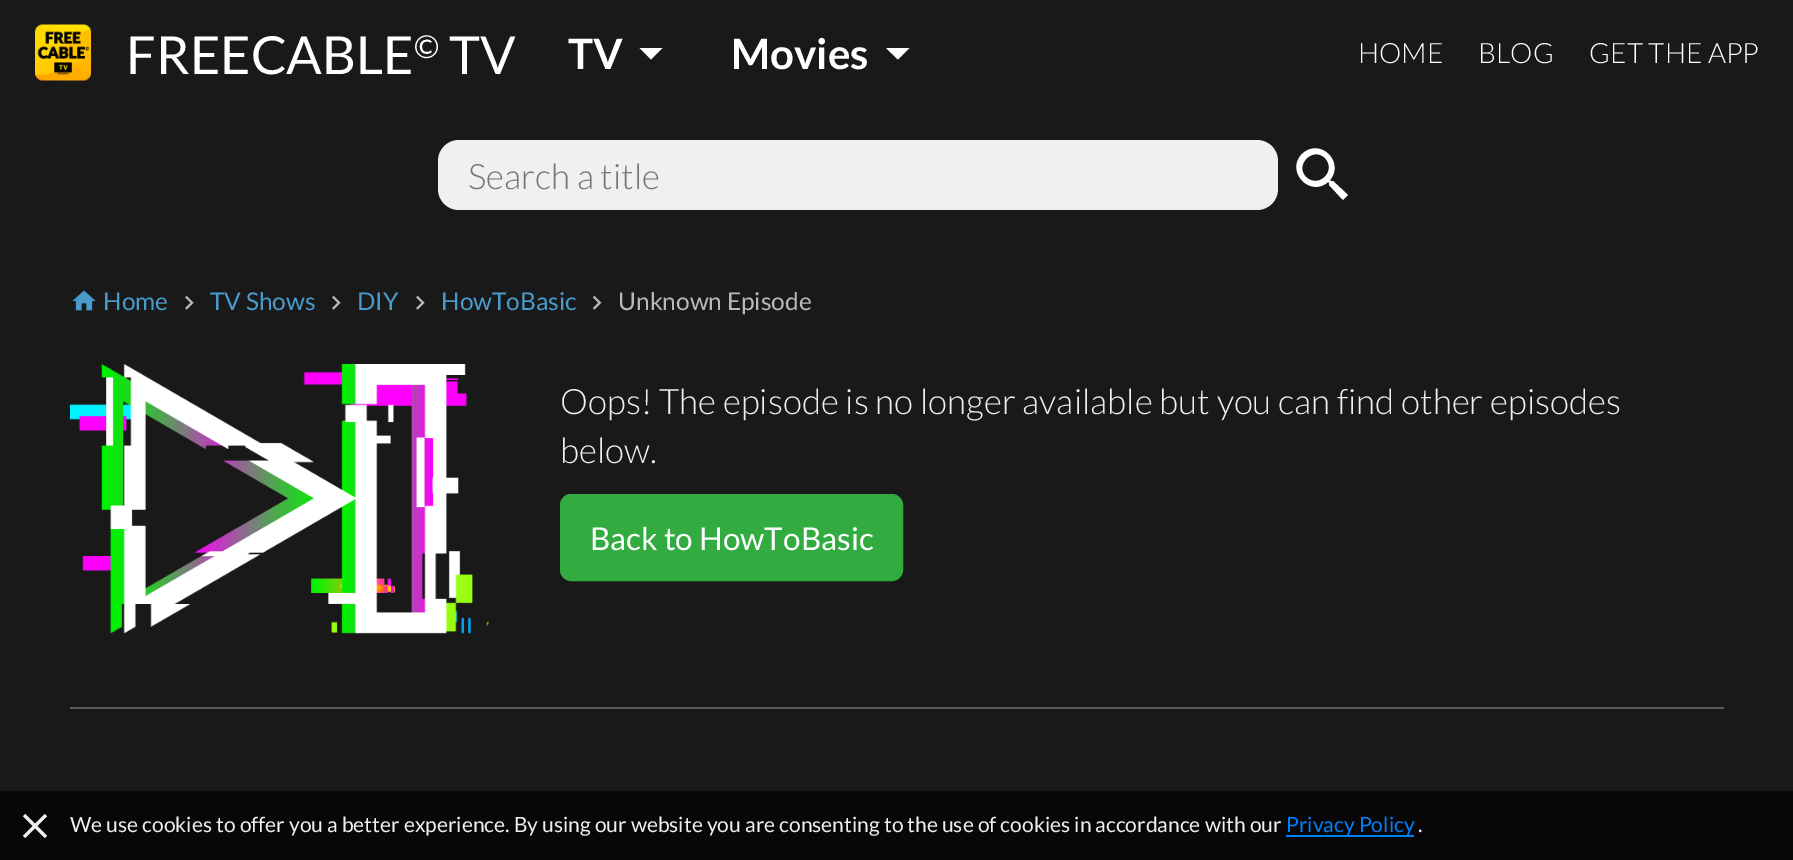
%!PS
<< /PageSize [1793 860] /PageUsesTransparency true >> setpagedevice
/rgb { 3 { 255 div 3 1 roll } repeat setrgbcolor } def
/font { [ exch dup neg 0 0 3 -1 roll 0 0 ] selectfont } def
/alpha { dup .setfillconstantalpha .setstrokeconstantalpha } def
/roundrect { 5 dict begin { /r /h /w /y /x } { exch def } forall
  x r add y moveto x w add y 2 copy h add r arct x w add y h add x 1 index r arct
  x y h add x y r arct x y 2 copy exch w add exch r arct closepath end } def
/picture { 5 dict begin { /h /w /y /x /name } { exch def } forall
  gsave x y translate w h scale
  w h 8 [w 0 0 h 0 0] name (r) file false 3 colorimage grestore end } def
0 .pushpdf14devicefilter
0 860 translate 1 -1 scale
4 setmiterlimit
25 25 25 rgb
0 0 1793 860 rectfill
(img/1.rgb) 35 24 56 57 picture
255 255 255 rgb
639.5 48 moveto 662.5 48 lineto 651 59.5 lineto closepath fill
886 48 moveto 909.5 48 lineto 898 59.5 lineto closepath fill
240 240 240 rgb
438 140 840 70 21 roundrect fill
255 255 255 rgb
1306 177 moveto 1319 189 1337 171 1325 158 curveto 1313 146 1294 165 1306 177 curveto closepath 1333 181 moveto 1348 195 lineto 1343 200 lineto 1329 185 lineto 1329 183 lineto 1328 182 lineto 1310 198 1285 171 1302 154 curveto 1320 137 1345 162 1330 180 curveto 1331 181 lineto closepath fill
(img/2.rgb) 72 290 24 21 picture
(img/3.rgb) 185 295 9 15 picture
(img/3.rgb) 332 295 9 15 picture
(img/3.rgb) 416 295 9 15 picture
(img/4.rgb) 592 295 10 15 picture
(img/5.rgb) 70 364 419 270 picture
50 172 65 rgb
561 495 341 85 10 roundrect gsave fill grestore
2 setlinewidth
stroke
90 90 90 rgb
70 707 1654 2 rectfill
0.7 alpha
0 0 0 rgb
0 791 1793 69 rectfill
1 alpha
(img/6.rgb) 22 813 26 26 picture
0 127 251 rgb
1286 835 128 2 rectfill
/Lato-Regular 52.5 font
255 255 255 rgb
126 74 moveto (FREECABLE) show
/Lato-Regular 31.5 font
414 58 moveto (©) show
/Lato-Regular 52.5 font
449 74 moveto (TV) show
/Lato-Bold 42 font
568 69 moveto (TV) show
731 69 moveto (Movies) show
/Lato-Light 28 font
[
  [(HOME) 1358 63]
  [(BLOG) 1478 63]
  [(GET THE APP) 1589 63]
] { aload pop moveto show } forall
/Lato-Light 35 font
117 117 117 rgb
468 189 moveto (Search a title) show
/Lato-Regular 24.5 font
73 155 203 rgb
[
  [(Home) 103 310]
  [(TV Shows) 210 310]
  [(DIY) 357 310]
  [(HowToBasic) 441 310]
] { aload pop moveto show } forall
183 186 188 rgb
618 310 moveto (Unknown Episode) show
/Lato-Light 35 font
240 240 240 rgb
560 414 moveto (Oops! The episode is no longer available but you can find other episodes) show
560 463 moveto (below.) show
/Lato-Regular 31.5 font
255 255 255 rgb
590 550 moveto (Back to HowToBasic) show
/Lato-Regular 21 font
240 240 240 rgb
70 832 moveto (We use cookies to offer you a better experience. By using our website you are consenting to the use of cookies in accordance with our) show
0 127 251 rgb
1286 832 moveto (Privacy Policy) show
240 240 240 rgb
1418 832 moveto (.) show
.poppdf14devicefilter showpage
